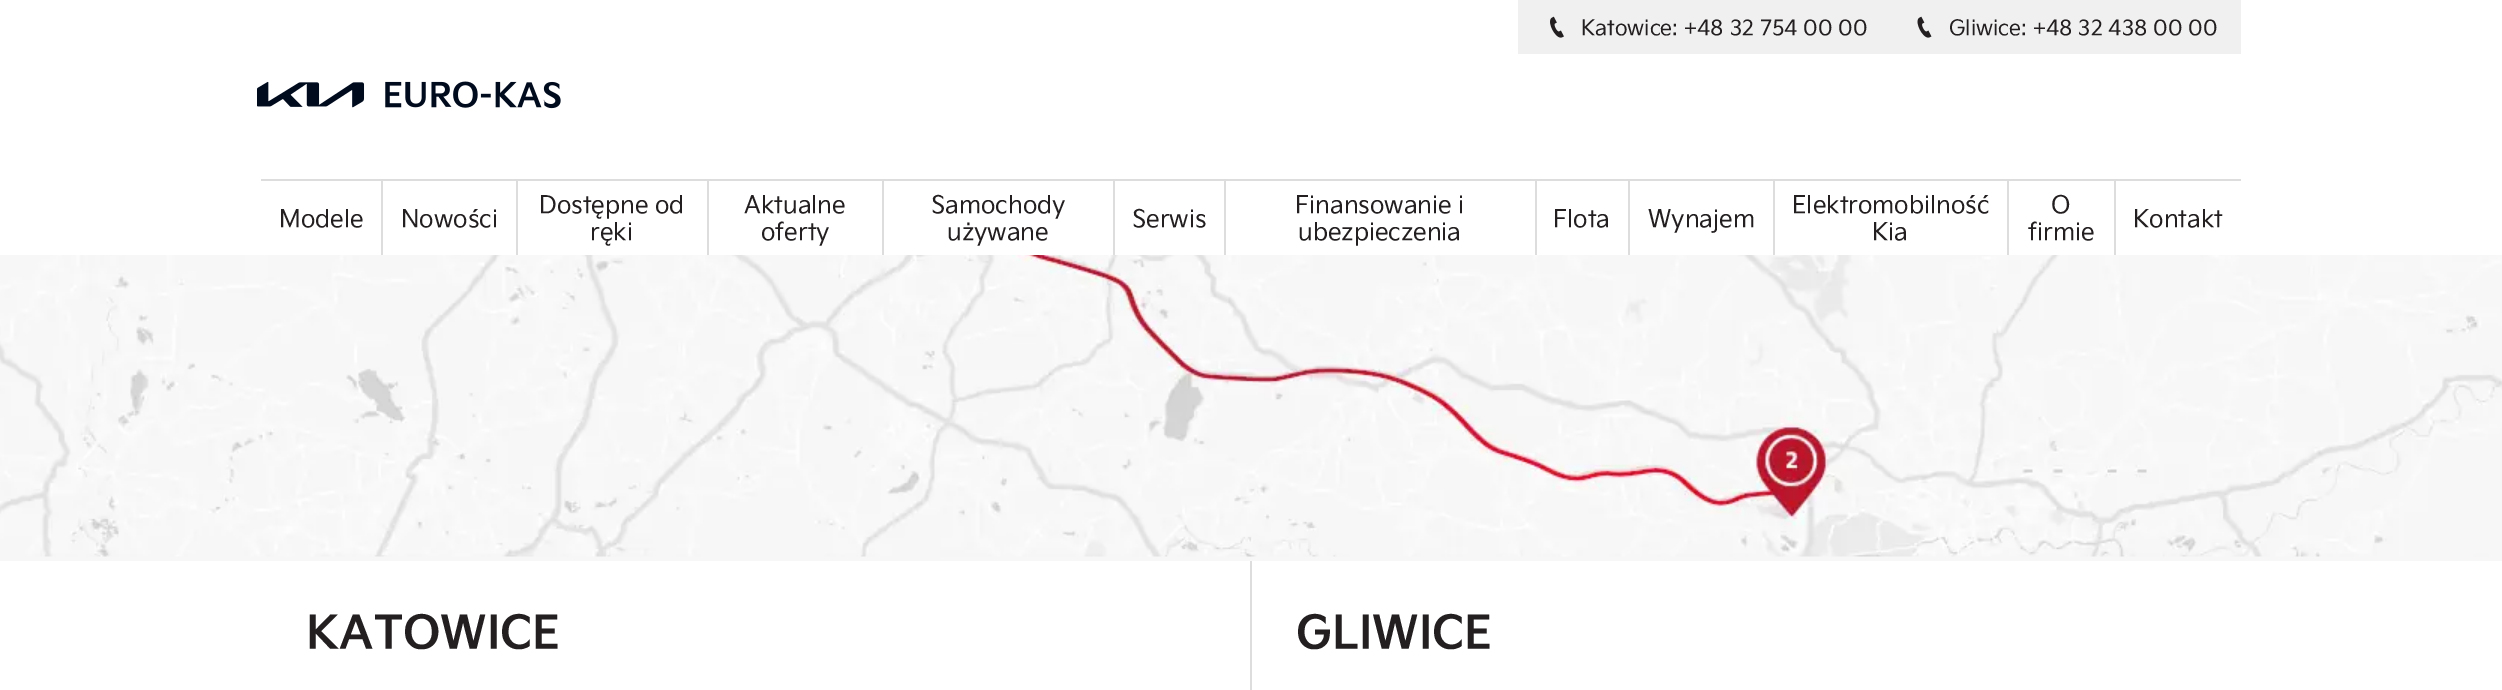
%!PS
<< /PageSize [2502 690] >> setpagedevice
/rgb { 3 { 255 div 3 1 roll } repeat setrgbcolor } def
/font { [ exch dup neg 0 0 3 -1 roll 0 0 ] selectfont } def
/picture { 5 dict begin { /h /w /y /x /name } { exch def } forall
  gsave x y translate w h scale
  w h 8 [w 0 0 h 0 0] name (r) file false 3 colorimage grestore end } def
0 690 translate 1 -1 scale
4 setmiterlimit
255 255 255 rgb
0 0 2502 690 rectfill
240 240 240 rgb
1518 0 723 54 rectfill
(img/1.rgb) 1550 16 14 22 picture
(img/2.rgb) 1917 16 15 22 picture
(img/3.rgb) 257 81 304 28 picture
[
  [261 179 1980 2 221 221 221]
  [381 180 2 75 221 221 221]
  [516 180 2 75 221 221 221]
  [707 180 2 75 221 221 221]
  [882 180 2 75 221 221 221]
  [1113 180 2 75 221 221 221]
  [1224 180 2 75 221 221 221]
  [1535 180 2 75 221 221 221]
  [1628 180 2 75 221 221 221]
  [1773 180 2 75 221 221 221]
  [2007 180 2 75 221 221 221]
  [2114 180 2 75 221 221 221]
  [0 556 2502 5 247 247 247]
] { aload pop rgb rectfill } forall
(img/4.rgb) 0 255 2502 302 picture
221 221 221 rgb
1250 561 2 129 rectfill
/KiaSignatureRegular-Regular 21 font
35 31 32 rgb
1581 35 moveto (Katowice: +48 32 754 00 00) show
1949 35 moveto (Gliwice: +48 32 438 00 00) show
/KiaSignatureRegular-Regular 24 font
[
  [(Modele) 279 227]
  [(Nowości) 401 227]
  [(Dostępne od) 539 213]
  [(ręki) 590 240]
  [(Aktualne) 744 213]
  [(oferty) 761 240]
  [(Samochody) 931 213]
  [(używane) 947 240]
  [(Serwis) 1132 227]
  [(Finansowanie i) 1295 213]
  [(ubezpieczenia) 1298 240]
  [(Flota) 1553 227]
  [(Wynajem) 1648 227]
  [(Elektromobilność) 1792 213]
  [(Kia) 1872 240]
  [(O) 2051 213]
  [(firmie) 2028 240]
  [(Kontakt) 2133 227]
] { aload pop moveto show } forall
/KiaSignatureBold-Bold 45 font
306 648 moveto (KATOWICE) show
1296 648 moveto (GLIWICE) show
showpage
